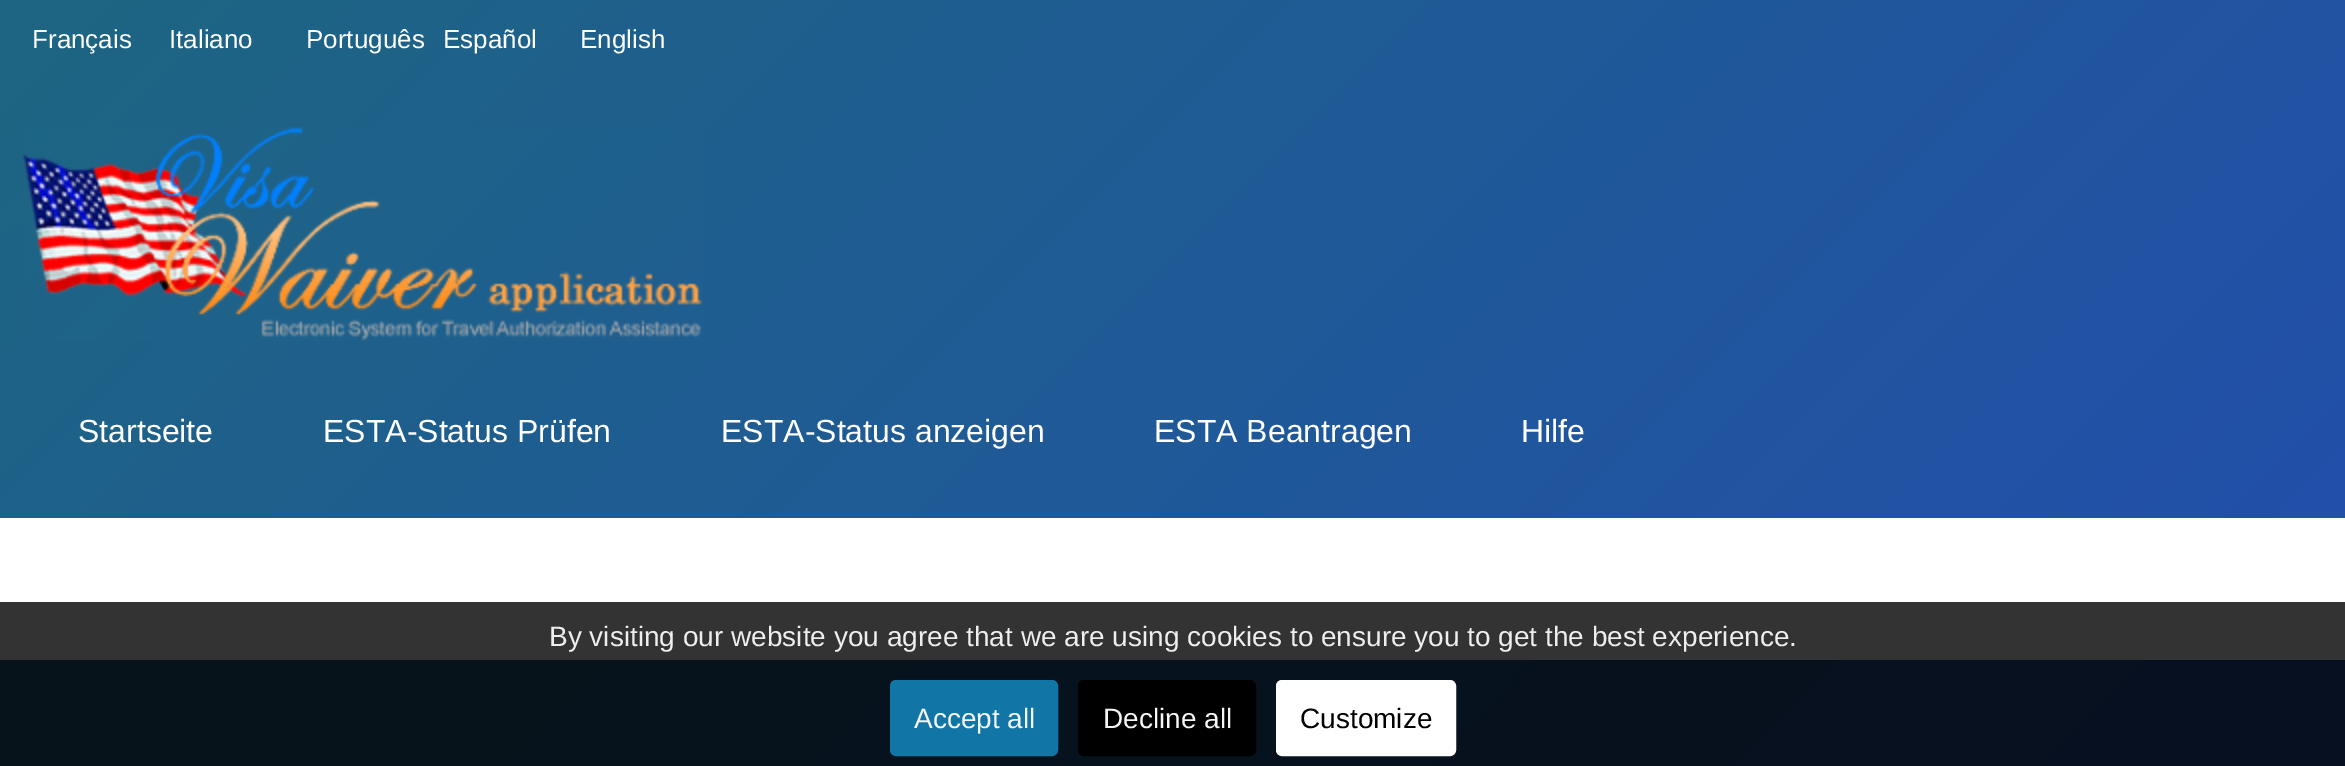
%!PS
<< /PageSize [2345 766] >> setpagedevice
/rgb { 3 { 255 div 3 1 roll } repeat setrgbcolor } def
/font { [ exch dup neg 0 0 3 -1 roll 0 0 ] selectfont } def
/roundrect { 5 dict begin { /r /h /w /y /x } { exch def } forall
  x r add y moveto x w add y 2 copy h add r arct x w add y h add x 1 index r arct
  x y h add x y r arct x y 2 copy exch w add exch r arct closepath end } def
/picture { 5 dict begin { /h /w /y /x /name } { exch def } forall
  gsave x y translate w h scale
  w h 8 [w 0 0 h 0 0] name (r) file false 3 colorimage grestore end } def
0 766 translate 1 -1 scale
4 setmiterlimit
255 255 255 rgb
0 0 2345 766 rectfill
51 51 51 rgb
0 602 2345 58 rectfill
gsave 0 0 moveto 2345 0 lineto 2345 518 lineto 0 518 lineto closepath clip newpath
<< /ShadingType 2 /ColorSpace /DeviceRGB /Coords [457 -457 1889 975] /Extend [true true] /Function << /FunctionType 2 /Domain [0 1] /C0 [0.114 0.4 0.51] /C1 [0.133 0.31 0.667] /N 1 >> >> shfill grestore
(img/1.rgb) 22 127 681 214 picture
gsave 0 660 moveto 2345 660 lineto 2345 766 lineto 0 766 lineto closepath clip newpath
<< /ShadingType 2 /ColorSpace /DeviceRGB /Coords [488 172 1858 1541] /Extend [true true] /Function << /FunctionType 2 /Domain [0 1] /C0 [0.024 0.078 0.102] /C1 [0.027 0.063 0.133] /N 1 >> >> shfill grestore
17 118 166 rgb
892 682 164 72 4 roundrect gsave fill grestore
4 setlinewidth
stroke
0 0 0 rgb
1080 682 174 72 4 roundrect gsave fill grestore
stroke
255 255 255 rgb
1278 682 176 72 4 roundrect gsave fill grestore
stroke
/LiberationSans-Regular 26 font
[
  [(Français) 32 48]
  [(Italiano) 169 48]
  [(Português) 306 48]
  [(Español) 443 48]
  [(English) 580 48]
] { aload pop moveto show } forall
/LiberationSans-Regular 32 font
[
  [(Startseite) 78 442]
  [(ESTA-Status Prüfen) 323 442]
  [(ESTA-Status anzeigen) 721 442]
  [(ESTA Beantragen) 1154 442]
  [(Hilfe) 1521 442]
] { aload pop moveto show } forall
/LiberationSans-Regular 28 font
238 238 238 rgb
549 646 moveto (By visiting our website you agree that we are using cookies to ensure you to get the best experience.) show
245 245 245 rgb
914 728 moveto (Accept all) show
1103 728 moveto (Decline all) show
0 0 0 rgb
1300 728 moveto (Customize) show
showpage
